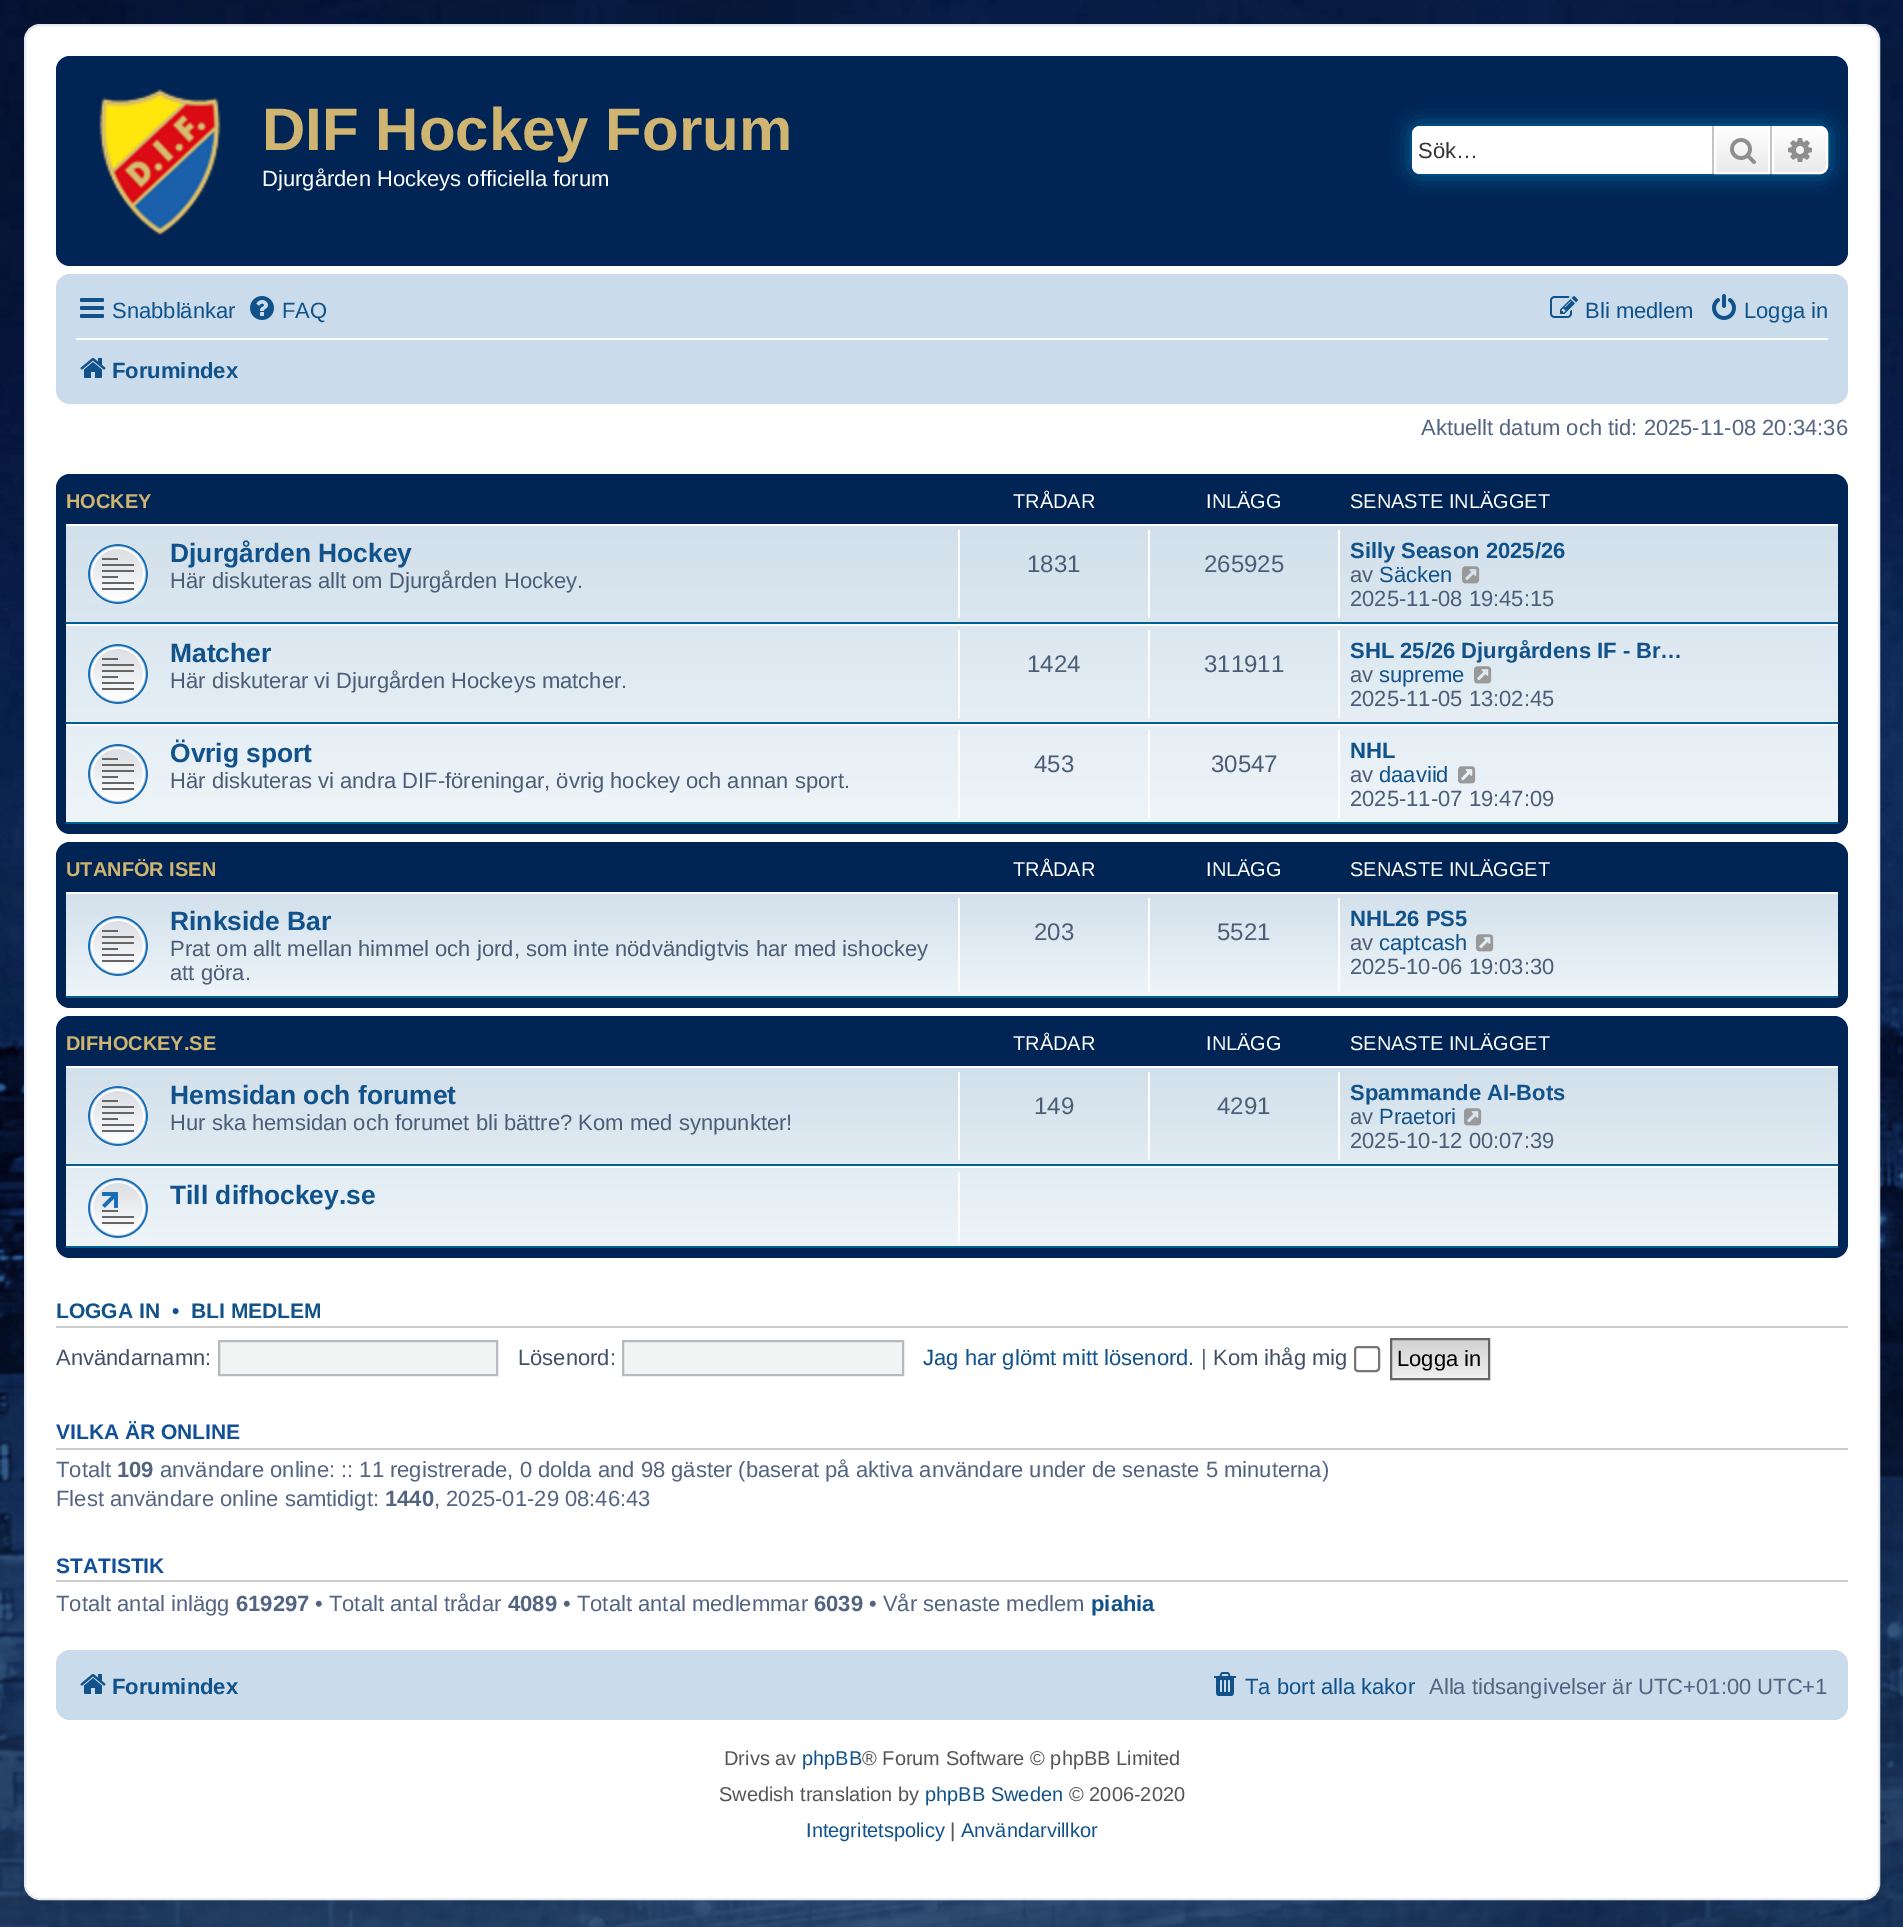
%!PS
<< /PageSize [1903 1927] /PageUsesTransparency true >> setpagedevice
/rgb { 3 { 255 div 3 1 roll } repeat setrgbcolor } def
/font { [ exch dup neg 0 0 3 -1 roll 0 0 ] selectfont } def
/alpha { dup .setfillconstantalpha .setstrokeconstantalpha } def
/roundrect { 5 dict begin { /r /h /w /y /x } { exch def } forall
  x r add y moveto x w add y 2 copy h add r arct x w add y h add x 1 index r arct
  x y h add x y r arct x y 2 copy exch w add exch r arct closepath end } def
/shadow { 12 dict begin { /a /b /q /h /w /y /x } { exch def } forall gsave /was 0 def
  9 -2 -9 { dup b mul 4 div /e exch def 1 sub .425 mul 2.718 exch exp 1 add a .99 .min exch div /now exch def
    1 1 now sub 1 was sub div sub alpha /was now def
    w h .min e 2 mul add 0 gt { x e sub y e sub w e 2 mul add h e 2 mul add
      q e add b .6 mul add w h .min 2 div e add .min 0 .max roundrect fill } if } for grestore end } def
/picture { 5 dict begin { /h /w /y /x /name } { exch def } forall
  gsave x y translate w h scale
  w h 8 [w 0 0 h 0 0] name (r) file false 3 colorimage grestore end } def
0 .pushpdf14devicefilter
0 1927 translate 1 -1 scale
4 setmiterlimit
255 255 255 rgb
0 0 1903 1927 rectfill
(img/1.rgb) 0 1924 1903 3 picture
(img/2.rgb) 0 0 1903 1924 picture
25 25 1854 1874 15 roundrect gsave fill grestore
230 233 237 rgb
2 setlinewidth
stroke
0 37 84 rgb
56 56 1792 210 14 roundrect fill
(img/3.rgb) 99 89 122 146 picture
0 117 176 rgb
1412 126 416 48 8 10 1 shadow
255 255 255 rgb
1420 126 moveto 1712 126 lineto 1712 174 lineto 1420 174 lineto 1415.5 174 1412 170.5 1412 166 curveto 1412 134 lineto 1412 129.5 1415.5 126 1420 126 curveto closepath fill
gsave 1716 128 moveto 1768 128 lineto 1768 172 lineto 1716 172 lineto closepath clip newpath
<< /ShadingType 2 /ColorSpace /DeviceRGB /Coords [1742 126 1742 174] /Extend [true true] /Function << /FunctionType 2 /Domain [0 1] /C0 [1 1 1] /C1 [0.914 0.914 0.914] /N 1 >> >> shfill grestore
1715 127 54 46 rectstroke
199 195 191 rgb
1770 126 2 48 rectfill
1712 126 2 48 rectfill
(img/4.rgb) 1730 138 26 26 picture
gsave 1773 127 moveto 1820 127 lineto 1824 127 1827 130 1827 134 curveto 1827 166 lineto 1827 170 1824 173 1820 173 curveto 1773 173 lineto closepath clip newpath
<< /ShadingType 2 /ColorSpace /DeviceRGB /Coords [1800 126 1800 174] /Extend [true true] /Function << /FunctionType 2 /Domain [0 1] /C0 [1 1 1] /C1 [0.914 0.914 0.914] /N 1 >> >> shfill grestore
255 255 255 rgb
1773 127 moveto 1820 127 lineto 1824 127 1827 130 1827 134 curveto 1827 166 lineto 1827 170 1824 173 1820 173 curveto 1773 173 lineto closepath stroke
(img/5.rgb) 1788 138 24 24 picture
202 220 235 rgb
56 274 1792 130 14 roundrect fill
(img/6.rgb) 80 298 24 20 picture
(img/7.rgb) 250 296 24 24 picture
(img/8.rgb) 1550 296 28 22 picture
(img/9.rgb) 1712 294 24 26 picture
255 255 255 rgb
76 338 1752 2 rectfill
(img/10.rgb) 80 358 26 20 picture
0 37 84 rgb
56 474 1792 360 14 roundrect fill
gsave 66 526 moveto 1838 526 lineto 1838 822 lineto 66 822 lineto closepath clip newpath
<< /ShadingType 2 /ColorSpace /DeviceRGB /Coords [952 524 952 824] /Extend [true true] /Function << /FunctionType 2 /Domain [0 1] /C0 [0.824 0.878 0.922] /C1 [0.933 0.961 0.976] /N 1 >> >> shfill grestore
255 255 255 rgb
66 524 1772 2 rectfill
0 96 143 rgb
66 622 1772 2 rectfill
(img/11.rgb) 88 544 60 60 picture
[
  [958 530 2 88 255 255 255]
  [1148 530 2 88 255 255 255]
  [1338 530 2 88 255 255 255]
] { aload pop rgb rectfill } forall
(img/12.rgb) 1462 566 18 18 picture
66 624 1772 2 rectfill
0 96 143 rgb
66 722 1772 2 rectfill
(img/13.rgb) 88 644 60 60 picture
[
  [958 630 2 88 255 255 255]
  [1148 630 2 88 255 255 255]
  [1338 630 2 88 255 255 255]
] { aload pop rgb rectfill } forall
(img/14.rgb) 1474 666 18 18 picture
66 724 1772 2 rectfill
0 96 143 rgb
66 822 1772 2 rectfill
(img/15.rgb) 88 744 60 60 picture
[
  [958 730 2 88 255 255 255]
  [1148 730 2 88 255 255 255]
  [1338 730 2 88 255 255 255]
] { aload pop rgb rectfill } forall
(img/16.rgb) 1458 766 18 18 picture
0 37 84 rgb
56 842 1792 166 14 roundrect fill
gsave 66 894 moveto 1838 894 lineto 1838 996 lineto 66 996 lineto closepath clip newpath
<< /ShadingType 2 /ColorSpace /DeviceRGB /Coords [952 892 952 998] /Extend [true true] /Function << /FunctionType 2 /Domain [0 1] /C0 [0.824 0.878 0.922] /C1 [0.933 0.961 0.976] /N 1 >> >> shfill grestore
255 255 255 rgb
66 892 1772 2 rectfill
0 96 143 rgb
66 996 1772 2 rectfill
(img/17.rgb) 88 916 60 60 picture
[
  [958 898 2 94 255 255 255]
  [1148 898 2 94 255 255 255]
  [1338 898 2 94 255 255 255]
] { aload pop rgb rectfill } forall
(img/18.rgb) 1476 934 18 18 picture
0 37 84 rgb
56 1016 1792 242 14 roundrect fill
gsave 66 1068 moveto 1838 1068 lineto 1838 1246 lineto 66 1246 lineto closepath clip newpath
<< /ShadingType 2 /ColorSpace /DeviceRGB /Coords [952 1066 952 1248] /Extend [true true] /Function << /FunctionType 2 /Domain [0 1] /C0 [0.824 0.878 0.922] /C1 [0.933 0.961 0.976] /N 1 >> >> shfill grestore
255 255 255 rgb
66 1066 1772 2 rectfill
0 96 143 rgb
66 1164 1772 2 rectfill
(img/19.rgb) 88 1086 60 60 picture
[
  [958 1072 2 88 255 255 255]
  [1148 1072 2 88 255 255 255]
  [1338 1072 2 88 255 255 255]
] { aload pop rgb rectfill } forall
(img/20.rgb) 1464 1108 18 18 picture
66 1166 1772 2 rectfill
0 96 143 rgb
66 1246 1772 2 rectfill
(img/21.rgb) 88 1178 60 60 picture
255 255 255 rgb
958 1172 2 70 rectfill
204 204 204 rgb
56 1326 1792 2 rectfill
242 243 243 rgb
219 1341 moveto 497 1341 lineto 497 1375 lineto 219 1375 lineto closepath gsave fill grestore
180 186 192 rgb
stroke
242 243 243 rgb
623 1341 moveto 903 1341 lineto 903 1375 lineto 623 1375 lineto closepath gsave fill grestore
180 186 192 rgb
stroke
118 118 118 rgb
1355 1347 24 24 3 roundrect stroke
gsave 1392 1340 moveto 1488 1340 lineto 1488 1378 lineto 1392 1378 lineto closepath clip newpath
<< /ShadingType 2 /ColorSpace /DeviceRGB /Coords [1440 1340 1440 1378] /Extend [true true] /Function << /FunctionType 2 /Domain [0 1] /C0 [0.824 0.824 0.824] /C1 [0.937 0.937 0.937] /N 1 >> >> shfill grestore
102 102 102 rgb
1391 1339 98 40 rectstroke
204 204 204 rgb
56 1448 1792 2 rectfill
56 1580 1792 2 rectfill
202 220 235 rgb
56 1650 1792 70 14 roundrect fill
(img/10.rgb) 80 1674 26 20 picture
(img/22.rgb) 1214 1672 22 24 picture
/LiberationSans-Bold 60 font
207 181 113 rgb
262 150 moveto (DIF Hockey Forum) show
/LiberationSans-Regular 22 font
255 255 255 rgb
262 186 moveto (Djurgården Hockeys officiella forum) show
51 51 51 rgb
1418 158 moveto (Sök…) show
16 82 137 rgb
[
  [(Snabblänkar) 112 318]
  [(FAQ) 282 318]
  [(Bli medlem) 1585 318]
  [(Logga in) 1744 318]
] { aload pop moveto show } forall
/LiberationSans-Bold 22 font
112 378 moveto (Forumindex) show
/LiberationSans-Regular 22 font
83 100 130 rgb
1421 435 moveto (Aktuellt datum och tid: 2025-11-08 20:34:36) show
/LiberationSans-Bold 20 font
207 181 113 rgb
66 508 moveto (HOCKEY) show
/LiberationSans-Regular 20 font
255 255 255 rgb
[
  [(TRÅDAR) 1013 508]
  [(INLÄGG) 1206 508]
  [(SENASTE INLÄGGET) 1350 508]
] { aload pop moveto show } forall
/LiberationSans-Bold 26.4 font
16 82 137 rgb
170 562 moveto (Djurgården Hockey) show
/LiberationSans-Regular 22 font
76 93 119 rgb
170 588 moveto (Här diskuteras allt om Djurgården Hockey.) show
/LiberationSans-Regular 24 font
1027 572 moveto (1831) show
1204 572 moveto (265925) show
/LiberationSans-Bold 22 font
16 82 137 rgb
1350 558 moveto (Silly Season 2025/26) show
/LiberationSans-Regular 22 font
76 93 119 rgb
1350 582 moveto (av) show
16 82 137 rgb
1379 582 moveto (Säcken) show
76 93 119 rgb
1350 606 moveto (2025-11-08 19:45:15) show
/LiberationSans-Bold 26.4 font
16 82 137 rgb
170 662 moveto (Matcher) show
/LiberationSans-Regular 22 font
76 93 119 rgb
170 688 moveto (Här diskuterar vi Djurgården Hockeys matcher.) show
/LiberationSans-Regular 24 font
1027 672 moveto (1424) show
1204 672 moveto (311911) show
/LiberationSans-Bold 22 font
16 82 137 rgb
1350 658 moveto (SHL 25/26 Djurgårdens IF - Br…) show
/LiberationSans-Regular 22 font
76 93 119 rgb
1350 682 moveto (av) show
16 82 137 rgb
1379 682 moveto (supreme) show
76 93 119 rgb
1350 706 moveto (2025-11-05 13:02:45) show
/LiberationSans-Bold 26.4 font
16 82 137 rgb
170 762 moveto (Övrig sport) show
/LiberationSans-Regular 22 font
76 93 119 rgb
170 788 moveto (Här diskuteras vi andra DIF-föreningar, övrig hockey och annan sport.) show
/LiberationSans-Regular 24 font
1034 772 moveto (453) show
1211 772 moveto (30547) show
/LiberationSans-Bold 22 font
16 82 137 rgb
1350 758 moveto (NHL) show
/LiberationSans-Regular 22 font
76 93 119 rgb
1350 782 moveto (av) show
16 82 137 rgb
1379 782 moveto (daaviid) show
76 93 119 rgb
1350 806 moveto (2025-11-07 19:47:09) show
/LiberationSans-Bold 20 font
207 181 113 rgb
66 876 moveto (UTANFÖR ISEN) show
/LiberationSans-Regular 20 font
255 255 255 rgb
[
  [(TRÅDAR) 1013 876]
  [(INLÄGG) 1206 876]
  [(SENASTE INLÄGGET) 1350 876]
] { aload pop moveto show } forall
/LiberationSans-Bold 26.4 font
16 82 137 rgb
170 930 moveto (Rinkside Bar) show
/LiberationSans-Regular 22 font
76 93 119 rgb
170 956 moveto (Prat om allt mellan himmel och jord, som inte nödvändigtvis har med ishockey) show
170 980 moveto (att göra.) show
/LiberationSans-Regular 24 font
1034 940 moveto (203) show
1217 940 moveto (5521) show
/LiberationSans-Bold 22 font
16 82 137 rgb
1350 926 moveto (NHL26 PS5) show
/LiberationSans-Regular 22 font
76 93 119 rgb
1350 950 moveto (av) show
16 82 137 rgb
1379 950 moveto (captcash) show
76 93 119 rgb
1350 974 moveto (2025-10-06 19:03:30) show
/LiberationSans-Bold 20 font
207 181 113 rgb
66 1050 moveto (DIFHOCKEY.SE) show
/LiberationSans-Regular 20 font
255 255 255 rgb
[
  [(TRÅDAR) 1013 1050]
  [(INLÄGG) 1206 1050]
  [(SENASTE INLÄGGET) 1350 1050]
] { aload pop moveto show } forall
/LiberationSans-Bold 26.4 font
16 82 137 rgb
170 1104 moveto (Hemsidan och forumet) show
/LiberationSans-Regular 22 font
76 93 119 rgb
170 1130 moveto (Hur ska hemsidan och forumet bli bättre? Kom med synpunkter!) show
/LiberationSans-Regular 24 font
1034 1114 moveto (149) show
1217 1114 moveto (4291) show
/LiberationSans-Bold 22 font
16 82 137 rgb
1350 1100 moveto (Spammande AI-Bots) show
/LiberationSans-Regular 22 font
76 93 119 rgb
1350 1124 moveto (av) show
16 82 137 rgb
1379 1124 moveto (Praetori) show
76 93 119 rgb
1350 1148 moveto (2025-10-12 00:07:39) show
/LiberationSans-Bold 26.4 font
16 82 137 rgb
170 1204 moveto (Till difhockey.se) show
/LiberationSans-Bold 21 font
56 1318 moveto (LOGGA IN) show
17 80 152 rgb
172 1318 moveto (•) show
16 82 137 rgb
191 1318 moveto (BLI MEDLEM) show
/LiberationSans-Regular 22 font
66 80 103 rgb
56 1365 moveto (Användarnamn:) show
518 1365 moveto (Lösenord:) show
16 82 137 rgb
923 1365 moveto (Jag har glömt mitt lösenord.) show
83 100 130 rgb
1201 1365 moveto (|) show
66 80 103 rgb
1213 1365 moveto (Kom ihåg mig) show
0 0 0 rgb
1397 1366 moveto (Logga in) show
/LiberationSans-Bold 21 font
17 80 152 rgb
56 1439 moveto (VILKA ÄR ONLINE) show
/LiberationSans-Regular 22 font
83 100 130 rgb
56 1477 moveto (Totalt) show
/LiberationSans-Bold 22 font
117 1477 moveto (109) show
/LiberationSans-Regular 22 font
160 1477 moveto (användare online: :: 11 registrerade, 0 dolda and 98 gäster \(baserat på aktiva användare under de senaste 5 minuterna\)) show
56 1506 moveto (Flest användare online samtidigt:) show
/LiberationSans-Bold 22 font
385 1506 moveto (1440) show
/LiberationSans-Regular 22 font
434 1506 moveto (, 2025-01-29 08:46:43) show
/LiberationSans-Bold 21 font
17 80 152 rgb
56 1573 moveto (STATISTIK) show
/LiberationSans-Regular 22 font
83 100 130 rgb
56 1611 moveto (Totalt antal inlägg) show
/LiberationSans-Bold 22 font
236 1611 moveto (619297) show
/LiberationSans-Regular 22 font
315 1611 moveto (• Totalt antal trådar) show
/LiberationSans-Bold 22 font
508 1611 moveto (4089) show
/LiberationSans-Regular 22 font
563 1611 moveto (• Totalt antal medlemmar) show
/LiberationSans-Bold 22 font
814 1611 moveto (6039) show
/LiberationSans-Regular 22 font
869 1611 moveto (• Vår senaste medlem) show
/LiberationSans-Bold 22 font
16 82 137 rgb
1091 1611 moveto (piahia) show
112 1694 moveto (Forumindex) show
/LiberationSans-Regular 22 font
1245 1694 moveto (Ta bort alla kakor) show
83 100 130 rgb
1429 1694 moveto (Alla tidsangivelser är UTC+01:00 UTC+1) show
/LiberationSans-Regular 20 font
85 85 85 rgb
724 1765 moveto (Drivs av) show
16 82 137 rgb
802 1765 moveto (phpBB) show
85 85 85 rgb
862 1765 moveto (® Forum Software © phpBB Limited) show
719 1801 moveto (Swedish translation by) show
16 82 137 rgb
925 1801 moveto (phpBB Sweden) show
85 85 85 rgb
1069 1801 moveto (© 2006-2020) show
16 82 137 rgb
806 1837 moveto (Integritetspolicy) show
85 85 85 rgb
950 1837 moveto (|) show
16 82 137 rgb
961 1837 moveto (Användarvillkor) show
.poppdf14devicefilter showpage
